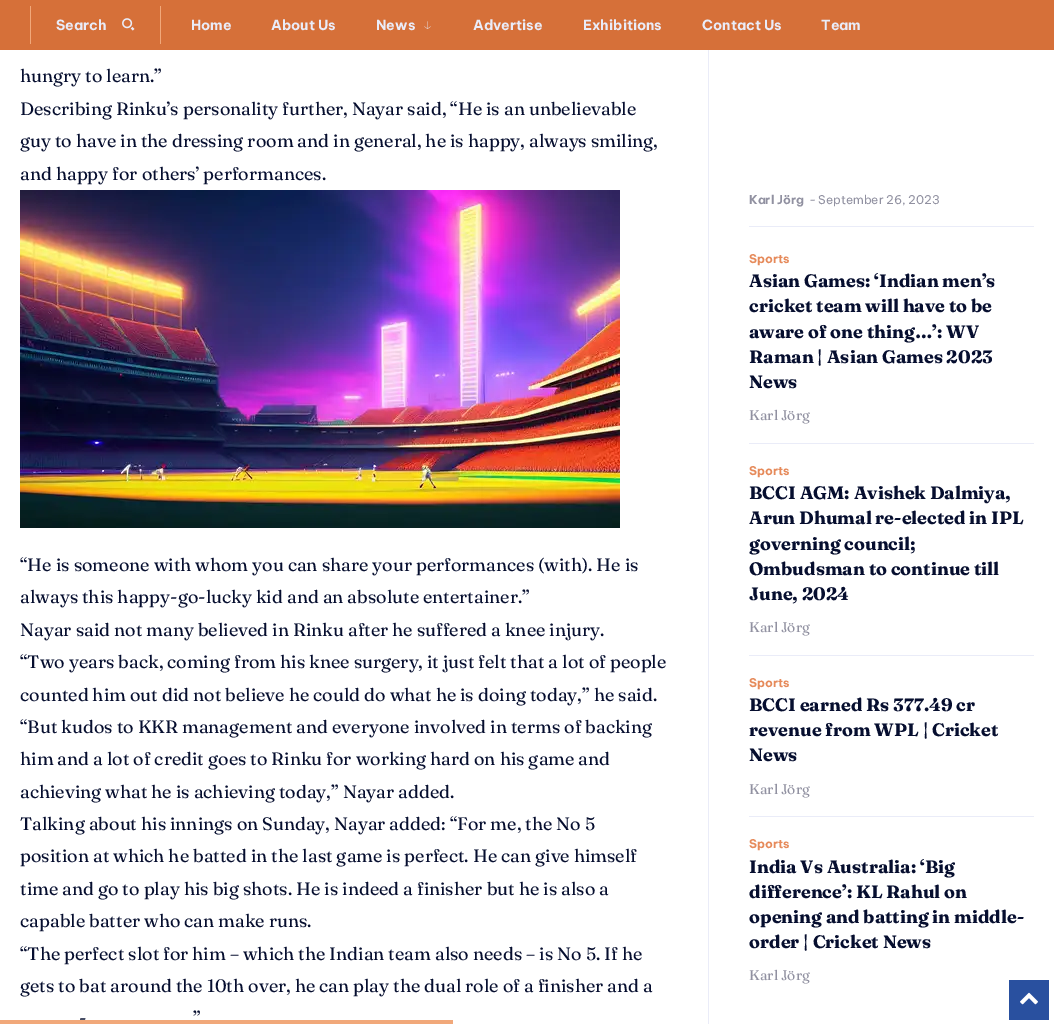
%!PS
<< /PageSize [1054 1024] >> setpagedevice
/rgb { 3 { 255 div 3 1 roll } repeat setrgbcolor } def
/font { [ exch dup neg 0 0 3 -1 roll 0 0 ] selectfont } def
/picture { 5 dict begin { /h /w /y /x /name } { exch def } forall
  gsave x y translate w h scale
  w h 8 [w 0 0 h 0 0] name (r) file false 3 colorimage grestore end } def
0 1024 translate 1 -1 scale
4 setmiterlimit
255 255 255 rgb
0 0 1054 1024 rectfill
[
  [0 0 1054 50 214 112 57]
  [160 6 1 38 241 168 122]
  [30 6 1 38 241 168 122]
] { aload pop rgb rectfill } forall
(img/1.rgb) 122 18 13 13 picture
(img/2.rgb) 424 21 7 8 picture
234 236 248 rgb
708 50 1 974 rectfill
(img/3.rgb) 20 190 600 338 picture
[
  [749 226 285 1 234 236 248]
  [749 443 285 1 234 236 248]
  [749 655 285 1 234 236 248]
  [749 816 285 1 234 236 248]
  [1009 980 40 40 41 80 159]
] { aload pop rgb rectfill } forall
(img/4.rgb) 1020 992 18 13 picture
241 168 122 rgb
0 1020 453 4 rectfill
/BeVietnamPro-Bold 14 font
234 236 248 rgb
[
  [(Search) 56 30]
  [(Home) 191 30]
  [(About Us) 271 30]
  [(News) 376 30]
  [(Advertise) 473 30]
  [(Exhibitions) 583 30]
  [(Contact Us) 702 30]
  [(Team) 821 30]
] { aload pop moveto show } forall
/Fraunces-Regular 18 font
6 14 47 rgb
[
  [(hungry to learn.”) 20 82]
  [(Describing Rinku’s personality further, Nayar said, “He is an unbelievable) 20 115]
  [(guy to have in the dressing room and in general, he is happy, always smiling,) 20 147]
  [(and happy for others’ performances.) 20 180]
  [(“He is someone with whom you can share your performances \(with\). He is) 20 571]
  [(always this happy-go-lucky kid and an absolute entertainer.”) 20 603]
  [(Nayar said not many believed in Rinku after he suffered a knee injury.) 20 636]
  [(“Two years back, coming from his knee surgery, it just felt that a lot of people) 20 668]
  [(counted him out did not believe he could do what he is doing today,” he said.) 20 701]
  [(“But kudos to KKR management and everyone involved in terms of backing) 20 733]
  [(him and a lot of credit goes to Rinku for working hard on his game and) 20 765]
  [(achieving what he is achieving today,” Nayar added.) 20 798]
  [(Talking about his innings on Sunday, Nayar added: “For me, the No 5) 20 830]
  [(position at which he batted in the last game is perfect. He can give himself) 20 862]
  [(time and go to play his big shots. He is indeed a finisher but he is also a) 20 895]
  [(capable batter who can make runs.) 20 927]
  [(“The perfect slot for him – which the Indian team also needs – is No 5. If he) 20 960]
  [(gets to bat around the 10th over, he can play the dual role of a finisher and a) 20 992]
  [(”) 193 1024]
  [(-) 79 1024]
] { aload pop moveto show } forall
/BeVietnamPro-Bold 12 font
145 145 161 rgb
749 204 moveto (Karl Jörg) show
/BeVietnamPro-Regular 12 font
809 204 moveto (-) show
818 204 moveto (September 26, 2023) show
/BeVietnamPro-Bold 12 font
230 138 90 rgb
749 263 moveto (Sports) show
/Fraunces-Bold 18 font
6 14 47 rgb
[
  [(Asian Games: ‘Indian men’s) 749 287]
  [(cricket team will have to be) 749 312]
  [(aware of one thing…’: WV) 749 338]
  [(Raman | Asian Games 2023) 749 363]
  [(News) 749 388]
] { aload pop moveto show } forall
/Fraunces-Regular 14 font
145 145 161 rgb
749 420 moveto (Karl Jörg) show
/BeVietnamPro-Bold 12 font
230 138 90 rgb
749 475 moveto (Sports) show
/Fraunces-Bold 18 font
6 14 47 rgb
[
  [(BCCI AGM: Avishek Dalmiya,) 749 499]
  [(Arun Dhumal re-elected in IPL) 749 524]
  [(governing council;) 749 550]
  [(Ombudsman to continue till) 749 575]
  [(June, 2024) 749 600]
] { aload pop moveto show } forall
/Fraunces-Regular 14 font
145 145 161 rgb
749 632 moveto (Karl Jörg) show
/BeVietnamPro-Bold 12 font
230 138 90 rgb
749 687 moveto (Sports) show
/Fraunces-Bold 18 font
6 14 47 rgb
[
  [(BCCI earned Rs 377.49 cr) 749 711]
  [(revenue from WPL | Cricket) 749 736]
  [(News) 749 761]
] { aload pop moveto show } forall
/Fraunces-Regular 14 font
145 145 161 rgb
749 794 moveto (Karl Jörg) show
/BeVietnamPro-Bold 12 font
230 138 90 rgb
749 848 moveto (Sports) show
/Fraunces-Bold 18 font
6 14 47 rgb
[
  [(India Vs Australia: ‘Big) 749 873]
  [(difference’: KL Rahul on) 749 898]
  [(opening and batting in middle-) 749 923]
  [(order | Cricket News) 749 948]
] { aload pop moveto show } forall
/Fraunces-Regular 14 font
145 145 161 rgb
749 980 moveto (Karl Jörg) show
showpage
